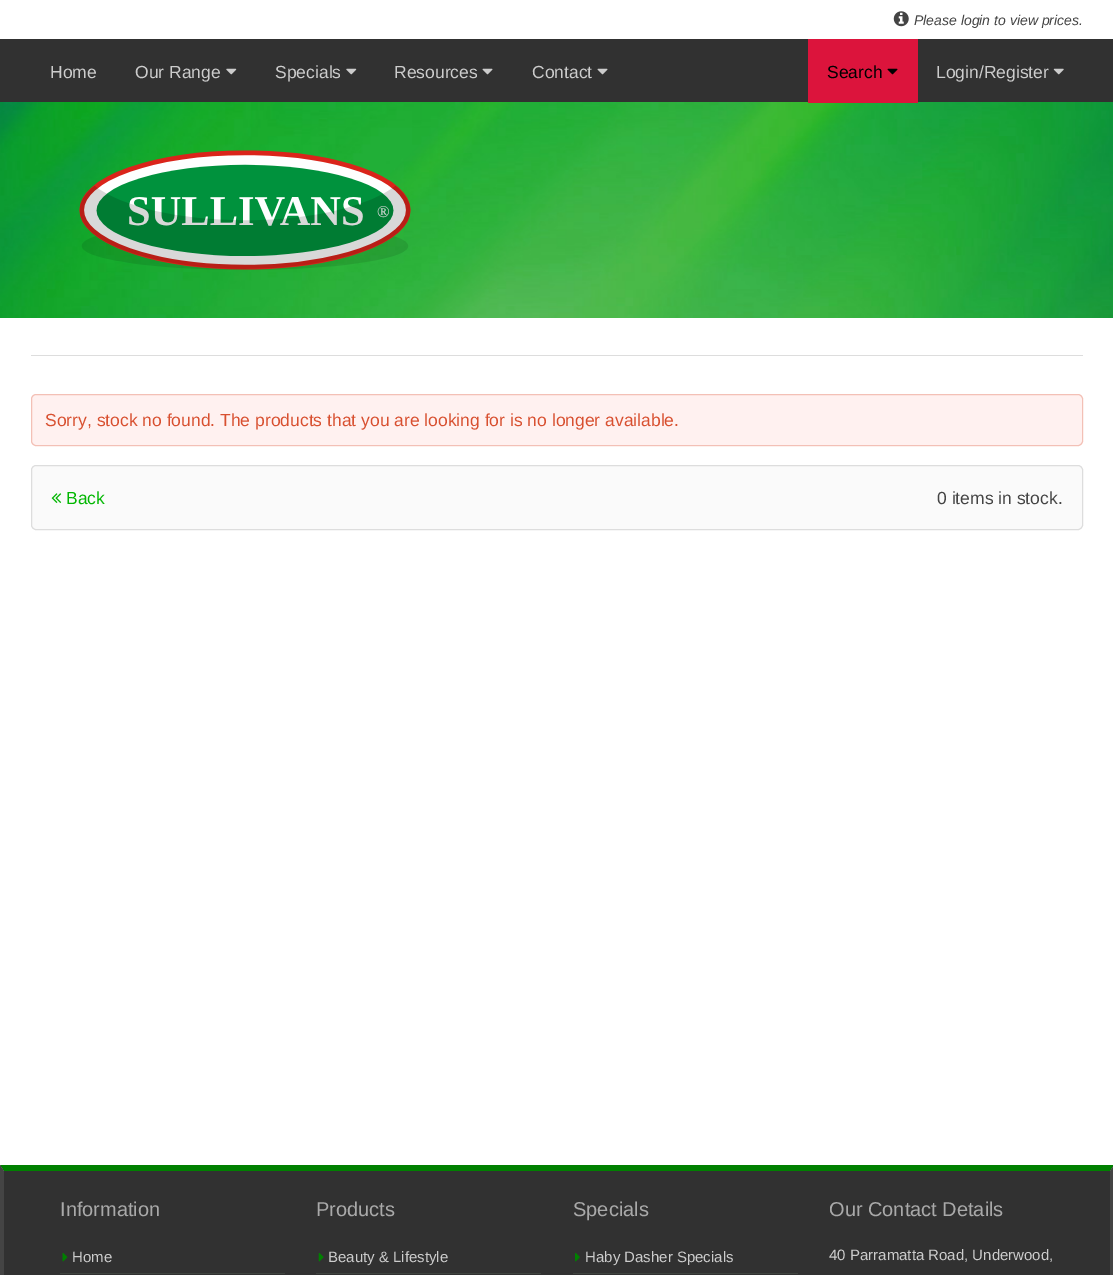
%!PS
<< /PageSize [1113 1275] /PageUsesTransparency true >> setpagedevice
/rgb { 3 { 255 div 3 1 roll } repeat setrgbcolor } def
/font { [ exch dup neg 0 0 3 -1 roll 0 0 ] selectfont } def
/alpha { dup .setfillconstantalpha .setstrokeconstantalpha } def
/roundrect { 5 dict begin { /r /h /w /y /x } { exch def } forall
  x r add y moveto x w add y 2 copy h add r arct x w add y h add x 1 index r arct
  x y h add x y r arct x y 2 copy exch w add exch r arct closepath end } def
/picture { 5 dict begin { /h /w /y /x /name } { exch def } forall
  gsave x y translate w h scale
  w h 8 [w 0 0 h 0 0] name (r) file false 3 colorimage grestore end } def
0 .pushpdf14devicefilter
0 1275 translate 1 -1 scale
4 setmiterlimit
255 255 255 rgb
0 0 1113 1275 rectfill
(img/1.rgb) 893 11 16 16 picture
49 49 49 rgb
0 39 1113 63 rectfill
(img/2.rgb) 226 68 11 7 picture
(img/2.rgb) 346 68 11 7 picture
(img/3.rgb) 482 68 11 7 picture
(img/3.rgb) 597 68 11 7 picture
(img/6.rgb) 0 102 1113 216 picture
220 20 60 rgb
808 39 110 64 rectfill
(img/4.rgb) 887 68 11 7 picture
(img/5.rgb) 1053 68 11 7 picture
(img/7.rgb) 79 150 332 120 picture
221 221 221 rgb
31 355 1052 1 rectfill
255 241 240 rgb
31 394 1052 52 5 roundrect fill
0.3 alpha
216 80 48 rgb
31.5 394.5 1051 51 4.5 roundrect stroke
1 alpha
250 250 250 rgb
31.5 465.5 1051 64 4.5 roundrect gsave fill grestore
221 221 221 rgb
stroke
(img/8.rgb) 51 493 11 10 picture
49 49 49 rgb
4 1171 1106 104 rectfill
0 128 0 rgb
0 1165 moveto 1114 1165 lineto 1110 1171 lineto 4 1171 lineto closepath fill
68 68 68 rgb
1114 1165 moveto 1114 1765 lineto 1110 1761 lineto 1110 1171 lineto closepath fill
0 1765 moveto 0 1165 lineto 4 1171 lineto 4 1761 lineto closepath fill
63 68 63 rgb
60 1273 225 1 rectfill
(img/9.rgb) 62 1253 6 9 picture
316 1273 225 1 rectfill
(img/10.rgb) 318 1253 6 9 picture
573 1273 225 1 rectfill
(img/11.rgb) 575 1253 5 9 picture
/LiberationSans-Italic 14 font
68 68 68 rgb
914 25 moveto (Please login to view prices.) show
/LiberationSans-Regular 17.5 font
204 204 204 rgb
[
  [(Home) 50 78]
  [(Our Range) 135 78]
  [(Specials) 275 78]
  [(Resources) 394 78]
  [(Contact) 532 78]
] { aload pop moveto show } forall
0 0 0 rgb
827 78 moveto (Search) show
204 204 204 rgb
936 78 moveto (Login/Register) show
216 80 48 rgb
45 426 moveto (Sorry, stock no found. The products that you are looking for is no longer available.) show
2 183 2 rgb
66 504 moveto (Back) show
68 68 68 rgb
937 504 moveto (0 items in stock.) show
/LiberationSans-Regular 20 font
169 169 169 rgb
60 1216 moveto (Information) show
/LiberationSans-Regular 15 font
204 204 204 rgb
72 1262 moveto (Home) show
/LiberationSans-Regular 20 font
169 169 169 rgb
316 1216 moveto (Products) show
/LiberationSans-Regular 15 font
204 204 204 rgb
328 1262 moveto (Beauty & Lifestyle) show
/LiberationSans-Regular 20 font
169 169 169 rgb
573 1216 moveto (Specials) show
/LiberationSans-Regular 15 font
204 204 204 rgb
585 1262 moveto (Haby Dasher Specials) show
/LiberationSans-Regular 20 font
169 169 169 rgb
829 1216 moveto (Our Contact Details) show
/LiberationSans-Regular 15 font
204 204 204 rgb
829 1260 moveto (40 Parramatta Road, Underwood,) show
.poppdf14devicefilter showpage
